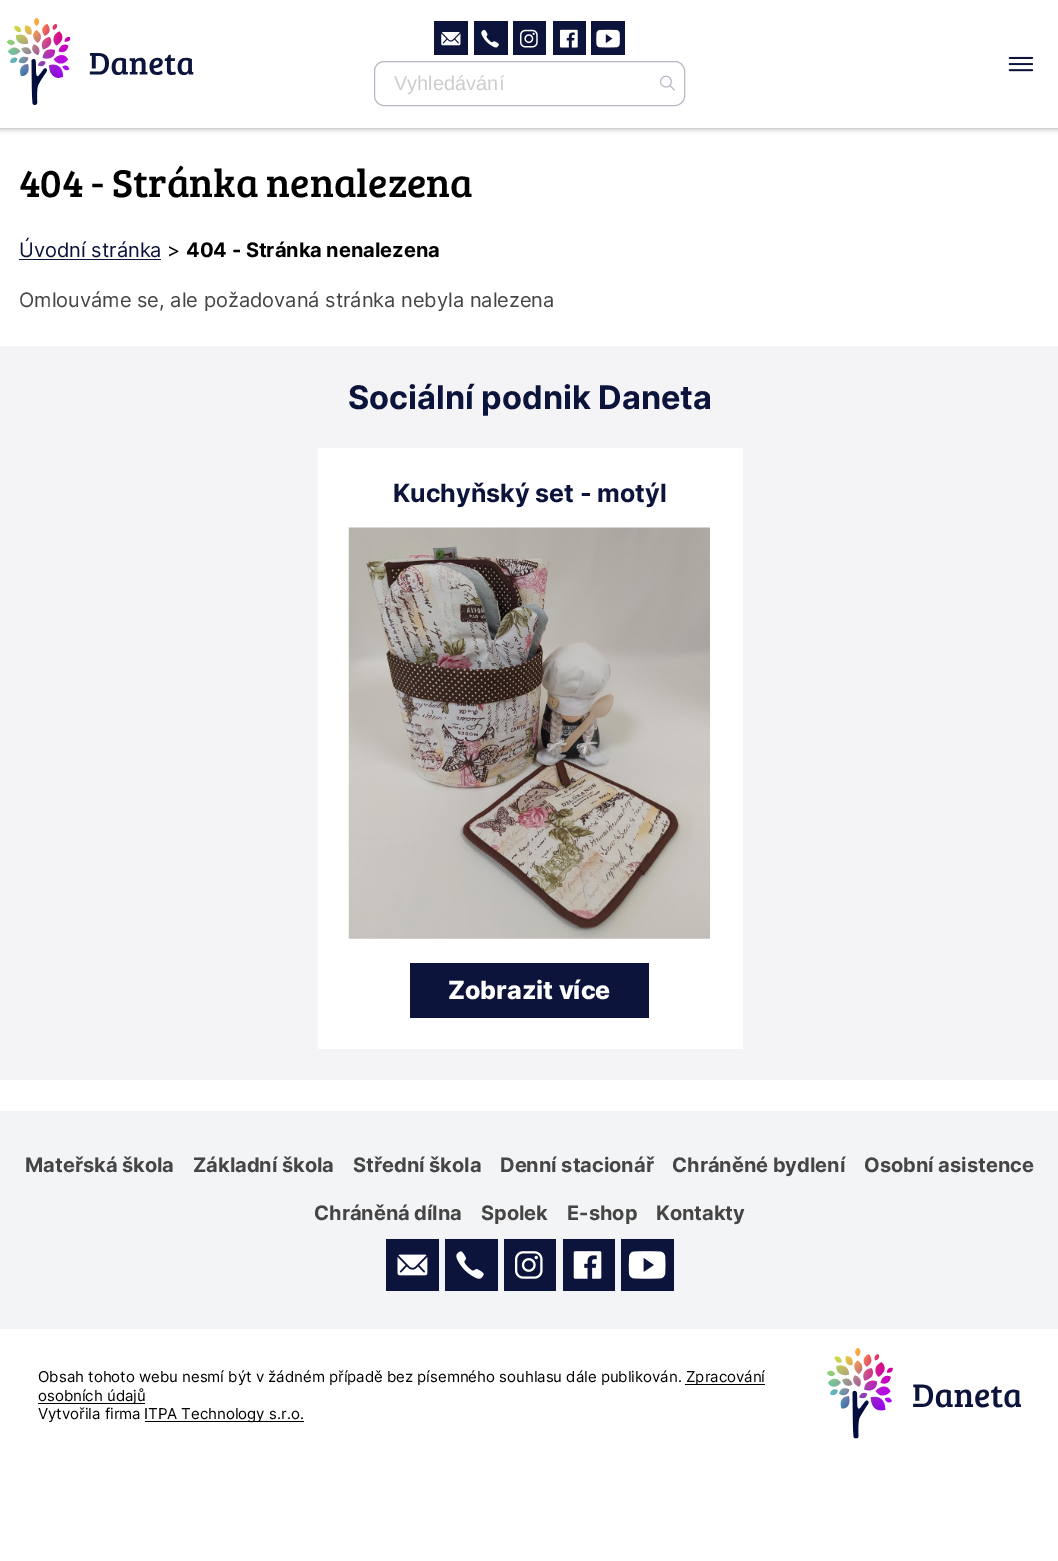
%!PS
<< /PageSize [1058 1561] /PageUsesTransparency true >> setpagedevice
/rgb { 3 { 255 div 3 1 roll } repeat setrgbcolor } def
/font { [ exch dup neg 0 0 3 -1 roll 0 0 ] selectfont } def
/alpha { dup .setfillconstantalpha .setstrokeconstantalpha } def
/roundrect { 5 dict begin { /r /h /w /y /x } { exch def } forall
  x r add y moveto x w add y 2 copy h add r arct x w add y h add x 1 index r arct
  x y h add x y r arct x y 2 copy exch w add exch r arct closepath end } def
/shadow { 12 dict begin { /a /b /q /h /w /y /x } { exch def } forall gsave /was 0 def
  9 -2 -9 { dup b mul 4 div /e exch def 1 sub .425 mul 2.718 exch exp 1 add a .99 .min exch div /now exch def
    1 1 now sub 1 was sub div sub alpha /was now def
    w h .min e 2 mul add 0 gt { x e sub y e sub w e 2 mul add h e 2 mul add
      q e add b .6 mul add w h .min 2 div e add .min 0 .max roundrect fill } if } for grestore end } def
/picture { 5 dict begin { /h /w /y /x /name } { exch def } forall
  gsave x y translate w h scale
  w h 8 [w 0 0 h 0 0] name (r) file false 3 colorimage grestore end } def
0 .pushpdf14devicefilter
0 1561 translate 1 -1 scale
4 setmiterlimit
255 255 255 rgb
0 0 1058 1561 rectfill
0 0 0 rgb
0 0 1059 128 0 3 0.4 shadow
255 255 255 rgb
0 0 1058 128 rectfill
(img/1.rgb) 7 18 187 87 picture
(img/2.rgb) 1008 56 26 16 picture
13 20 60 rgb
434 21 34 34 rectfill
(img/3.rgb) 441 32 20 14 picture
474 21 34 34 rectfill
(img/4.rgb) 481 29 18 19 picture
513 21 33 34 rectfill
(img/5.rgb) 520 29 18 19 picture
553 21 33 34 rectfill
(img/6.rgb) 560 29 18 19 picture
591 21 34 34 rectfill
(img/7.rgb) 596 29 24 19 picture
182 185 197 rgb
374.5 61.5 310 44 9.5 roundrect stroke
(img/8.rgb) 660 75 15 16 picture
[
  [19 259 142 1 13 20 60]
  [0 346 1058 734 244 244 246]
  [318 448 425 601 255 255 255]
] { aload pop rgb rectfill } forall
(img/9.rgb) 348 527 362 412 picture
[
  [410 963 239 55 13 20 60]
  [0 1111 1058 218 243 244 246]
  [386 1239 53 52 13 20 60]
] { aload pop rgb rectfill } forall
(img/10.rgb) 397 1254 31 22 picture
445 1239 53 52 rectfill
(img/11.rgb) 456 1251 28 28 picture
504 1239 52 52 rectfill
(img/12.rgb) 515 1251 28 28 picture
563 1239 52 52 rectfill
(img/13.rgb) 573 1251 29 28 picture
621 1239 53 52 rectfill
(img/14.rgb) 628 1251 38 28 picture
[
  [685 1384 80 1 0 0 0]
  [38 1403 107 1 0 0 0]
  [145 1421 159 1 0 0 0]
] { aload pop rgb rectfill } forall
(img/15.rgb) 827 1348 194 91 picture
/LiberationSans-Regular 20 font
204 204 204 rgb
394 90 moveto (Vyhledávání) show
/BreeSerif-Regular 40 font
0 0 0 rgb
19 197 moveto (404 - Stránka nenalezena) show
/Inter-Regular 20 font
13 20 60 rgb
19 257 moveto (Úvodní stránka) show
0 0 0 rgb
167 257 moveto (>) show
/Inter-Bold 20 font
186 257 moveto (404 - Stránka nenalezena) show
/Inter-Regular 20 font
69 69 69 rgb
19 307 moveto (Omlouváme se, ale požadovaná stránka nebyla nalezena) show
/Inter-Bold 32.5 font
13 20 60 rgb
348 409 moveto (Sociální podnik Daneta) show
/Inter-Bold 25 font
393 502 moveto (Kuchyňský set - motýl) show
/Inter-ExtraBold 25 font
255 255 255 rgb
448 999 moveto (Zobrazit více) show
/Inter-Bold 20 font
69 69 69 rgb
[
  [(Mateřská škola) 25 1172]
  [(Základní škola) 193 1172]
  [(Střední škola) 353 1172]
  [(Denní stacionář) 500 1172]
  [(Chráněné bydlení) 672 1172]
  [(Osobní asistence) 864 1172]
  [(Chráněná dílna) 314 1220]
  [(Spolek) 481 1220]
  [(E-shop) 567 1220]
  [(Kontakty) 656 1220]
] { aload pop moveto show } forall
/Inter-Regular 15 font
0 0 0 rgb
[
  [(Obsah tohoto webu nesmí být v žádném případě bez písemného souhlasu dále publikován.) 38 1382]
  [(Zpracování) 686 1382]
  [(osobních údajů) 38 1401]
  [(Vytvořila firma) 38 1419]
  [(ITPA Technology s.r.o.) 144 1419]
] { aload pop moveto show } forall
.poppdf14devicefilter showpage
